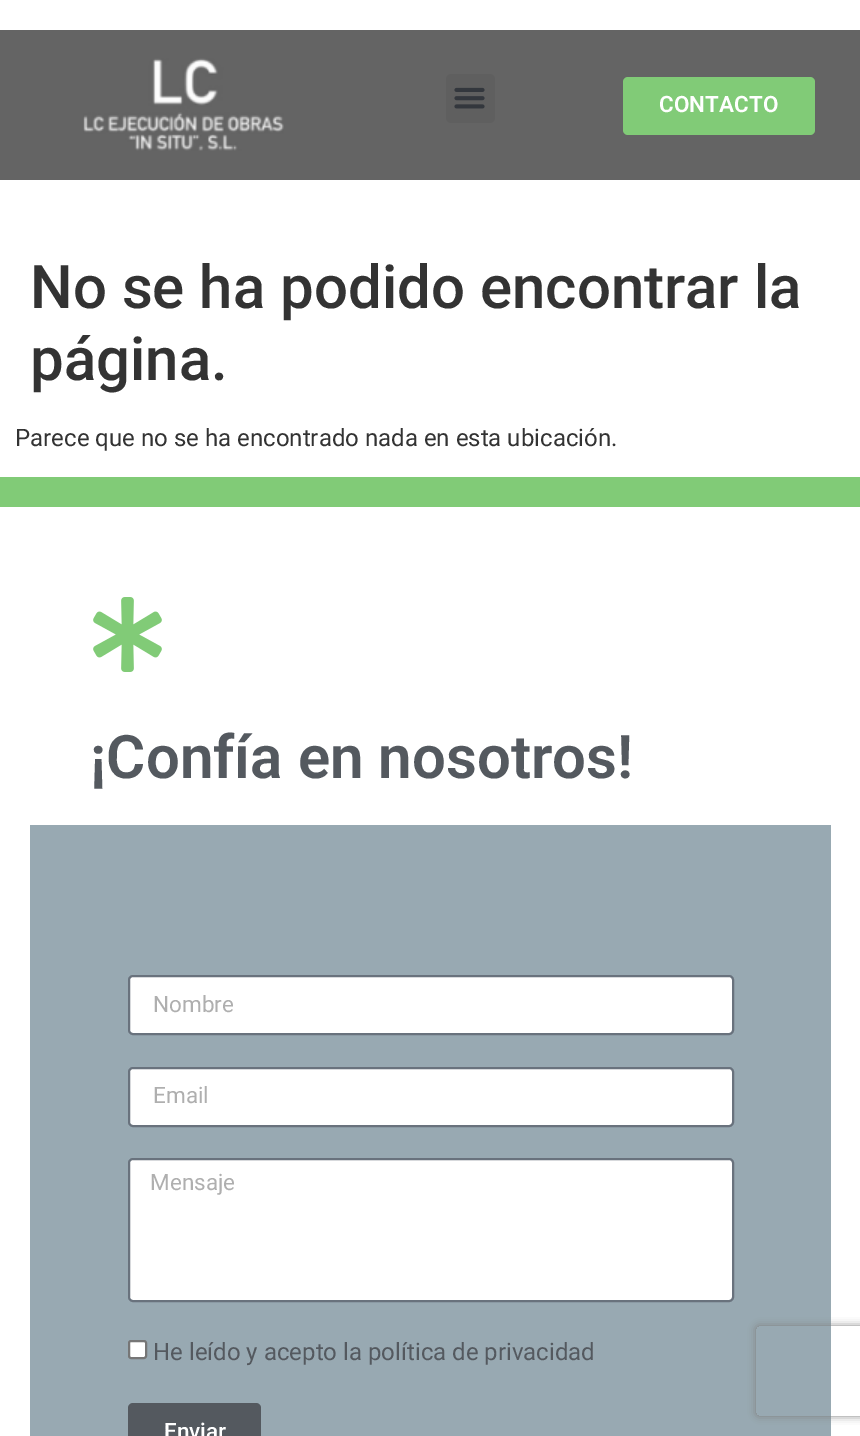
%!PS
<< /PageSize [860 1436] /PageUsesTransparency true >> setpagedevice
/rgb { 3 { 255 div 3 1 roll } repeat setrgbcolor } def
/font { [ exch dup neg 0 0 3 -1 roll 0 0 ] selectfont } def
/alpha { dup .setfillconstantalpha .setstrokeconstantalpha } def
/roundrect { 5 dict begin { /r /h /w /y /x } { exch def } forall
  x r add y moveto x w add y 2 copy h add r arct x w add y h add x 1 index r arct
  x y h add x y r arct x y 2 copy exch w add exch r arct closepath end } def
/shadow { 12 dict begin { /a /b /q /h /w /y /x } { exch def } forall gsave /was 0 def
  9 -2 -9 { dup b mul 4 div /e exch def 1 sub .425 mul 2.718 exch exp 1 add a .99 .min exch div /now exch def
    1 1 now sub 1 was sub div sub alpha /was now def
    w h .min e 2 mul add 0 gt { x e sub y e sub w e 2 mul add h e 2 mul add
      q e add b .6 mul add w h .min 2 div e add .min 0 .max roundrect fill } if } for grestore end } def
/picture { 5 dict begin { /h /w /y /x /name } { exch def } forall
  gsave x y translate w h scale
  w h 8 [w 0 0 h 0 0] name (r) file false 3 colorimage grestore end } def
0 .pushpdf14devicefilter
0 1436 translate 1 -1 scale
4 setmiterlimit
255 255 255 rgb
0 0 860 1436 rectfill
100 100 100 rgb
0 30 860 150 rectfill
(img/1.rgb) 83 58 201 93 picture
95 95 95 rgb
446 74 49 49 5 roundrect fill
(img/2.rgb) 454 87 31 22 picture
129 203 119 rgb
623 77 192 58 5 roundrect fill
0 477 860 30 rectfill
(img/3.rgb) 93 597 69 75 picture
152 169 178 rgb
30 825 801 611 rectfill
255 255 255 rgb
129 976 604 58 4 roundrect gsave fill grestore
105 114 125 rgb
2 setlinewidth
stroke
255 255 255 rgb
129 1068 604 58 4 roundrect gsave fill grestore
105 114 125 rgb
stroke
255 255 255 rgb
129 1159 604 142 4 roundrect gsave fill grestore
105 114 125 rgb
stroke
255 255 255 rgb
129 1341 17 17 2 roundrect gsave fill grestore
118 118 118 rgb
stroke
gsave
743 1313 moveto 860 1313 lineto 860 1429 lineto 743 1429 lineto closepath 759 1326 moveto 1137 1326 lineto 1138.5 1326 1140 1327.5 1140 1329 curveto 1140 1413 lineto 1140 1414.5 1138.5 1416 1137 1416 curveto 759 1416 lineto 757.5 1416 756 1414.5 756 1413 curveto 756 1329 lineto 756 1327.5 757.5 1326 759 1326 curveto closepath eoclip newpath
128 128 128 rgb
756 1326 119 90 3 4 1 shadow
grestore
84 89 95 rgb
128 1403 133 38 5 roundrect fill
/Roboto-SemiBold 22.5 font
255 255 255 rgb
659 112 moveto (CONTACTO) show
/Roboto-Medium 60 font
51 51 51 rgb
30 308 moveto (No se ha podido encontrar la) show
30 380 moveto (página.) show
/Roboto-Regular 24 font
15 446 moveto (Parece que no se ha encontrado nada en esta ubicación.) show
/Roboto-SemiBold 60 font
84 89 95 rgb
90 778 moveto (¡Confía en nosotros!) show
/Roboto-Regular 22.5 font
175 175 175 rgb
[
  [(Nombre) 153 1012]
  [(Email) 153 1103]
  [(Mensaje) 150 1190]
] { aload pop moveto show } forall
/Roboto-Regular 24 font
84 89 95 rgb
153 1360 moveto (He leído y acepto la política de privacidad) show
/Roboto-Medium 22.5 font
255 255 255 rgb
164 1439 moveto (Enviar) show
.poppdf14devicefilter showpage
